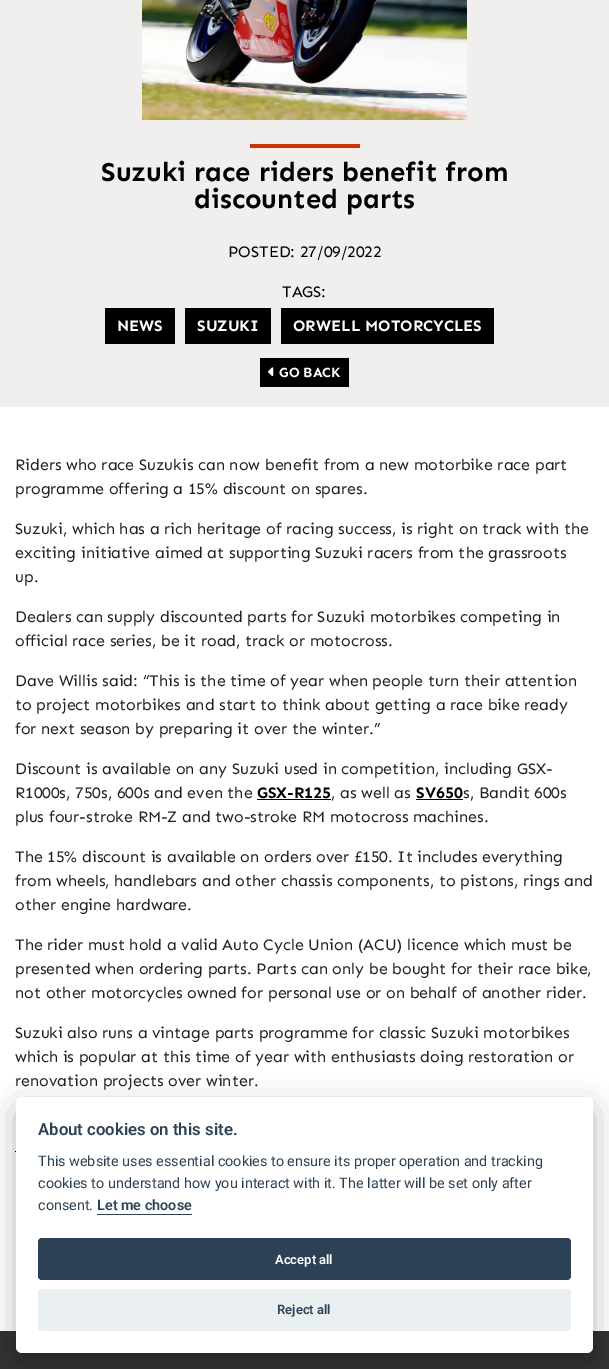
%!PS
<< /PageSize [609 1369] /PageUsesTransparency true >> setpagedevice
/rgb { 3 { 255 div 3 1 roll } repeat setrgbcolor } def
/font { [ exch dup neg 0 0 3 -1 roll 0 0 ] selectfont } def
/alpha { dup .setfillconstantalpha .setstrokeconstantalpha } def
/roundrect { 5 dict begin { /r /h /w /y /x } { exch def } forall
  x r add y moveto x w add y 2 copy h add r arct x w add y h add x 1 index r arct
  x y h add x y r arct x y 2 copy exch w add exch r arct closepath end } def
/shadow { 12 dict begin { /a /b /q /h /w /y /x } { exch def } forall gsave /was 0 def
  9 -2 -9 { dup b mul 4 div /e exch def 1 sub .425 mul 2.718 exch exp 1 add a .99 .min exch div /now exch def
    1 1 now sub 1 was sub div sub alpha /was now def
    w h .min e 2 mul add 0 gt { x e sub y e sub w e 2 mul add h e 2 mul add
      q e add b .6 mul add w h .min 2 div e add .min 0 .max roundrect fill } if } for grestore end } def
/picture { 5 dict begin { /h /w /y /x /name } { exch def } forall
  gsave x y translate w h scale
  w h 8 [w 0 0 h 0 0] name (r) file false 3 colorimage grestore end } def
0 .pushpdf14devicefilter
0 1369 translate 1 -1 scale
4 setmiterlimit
255 255 255 rgb
0 0 609 1369 rectfill
241 238 238 rgb
0 0 609 407 rectfill
(img/1.rgb) 142 0 325 120 picture
[
  [250 144 110 4 203 53 3]
  [105 308 70 36 0 0 0]
  [185 308 86 36 0 0 0]
  [281 308 213 36 0 0 0]
  [260 358 89 29 0 0 0]
] { aload pop rgb rectfill } forall
(img/2.rgb) 268 367 6 10 picture
[
  [257 799 74 1 0 0 0]
  [416 799 47 1 0 0 0]
  [15 1151 1 1 0 0 0]
  [0 1331 609 38 51 51 51]
] { aload pop rgb rectfill } forall
2 2 3 rgb
16 1107 577 256 6 15 0.28 shadow
255 255 255 rgb
16 1097 577 256 6 roundrect fill
45 65 86 rgb
97 1214 95 1 rectfill
38 1238 533 42 4 roundrect fill
234 239 242 rgb
38 1289 533 42 4 roundrect fill
/Sen-Bold 27.25 font
0 0 0 rgb
101 181 moveto (Suzuki race riders benefit from) show
194 208 moveto (discounted parts) show
/Sen-Regular 16 font
228 257 moveto (POSTED: 27/09/2022) show
282 297 moveto (TAGS:) show
/Sen-Bold 16 font
255 255 255 rgb
[
  [(NEWS) 117 331]
  [(SUZUKI) 197 331]
  [(ORWELL MOTORCYCLES) 293 331]
] { aload pop moveto show } forall
/Sen-Bold 14 font
279 377 moveto (GO BACK) show
/Sen-Regular 16 font
34 34 34 rgb
[
  [(Riders who race Suzukis can now benefit from a new motorbike race part) 15 470]
  [(programme offering a 15% discount on spares.) 15 494]
  [(Suzuki, which has a rich heritage of racing success, is right on track with the) 15 534]
  [(exciting initiative aimed at supporting Suzuki racers from the grassroots) 15 558]
  [(up.) 15 582]
  [(Dealers can supply discounted parts for Suzuki motorbikes competing in) 15 622]
  [(official race series, be it road, track or motocross.) 15 646]
  [(Dave Willis said: “This is the time of year when people turn their attention) 15 686]
  [(to project motorbikes and start to think about getting a race bike ready) 15 710]
  [(for next season by preparing it over the winter.”) 15 734]
  [(Discount is available on any Suzuki used in competition, including GSX-) 15 774]
  [(R1000s, 750s, 600s and even the) 15 798]
] { aload pop moveto show } forall
/Sen-Bold 16 font
0 0 0 rgb
257 798 moveto (GSX-R125) show
/Sen-Regular 16 font
34 34 34 rgb
331 798 moveto (, as well as) show
/Sen-Bold 16 font
0 0 0 rgb
416 798 moveto (SV650) show
/Sen-Regular 16 font
34 34 34 rgb
[
  [(s, Bandit 600s) 463 798]
  [(plus four-stroke RM-Z and two-stroke RM motocross machines.) 15 822]
  [(The 15% discount is available on orders over £150. It includes everything) 15 862]
  [(from wheels, handlebars and other chassis components, to pistons, rings and) 15 886]
  [(other engine hardware.) 15 910]
  [(The rider must hold a valid Auto Cycle Union \(ACU\) licence which must be) 15 950]
  [(presented when ordering parts. Parts can only be bought for their race bike,) 15 974]
  [(not other motorcycles owned for personal use or on behalf of another rider.) 15 998]
  [(Suzuki also runs a vintage parts programme for classic Suzuki motorbikes) 15 1038]
  [(which is popular at this time of year with enthusiasts doing restoration or) 15 1062]
  [(renovation projects over winter.) 15 1086]
] { aload pop moveto show } forall
/Roboto-SemiBold 16.75 font
45 65 86 rgb
38 1135 moveto (About cookies on this site.) show
/Roboto-Regular 14.4 font
[
  [(This website uses essential cookies to ensure its proper operation and tracking) 38 1166]
  [(cookies to understand how you interact with it. The latter will be set only after) 38 1188]
  [(consent.) 38 1210]
] { aload pop moveto show } forall
/Roboto-SemiBold 14.4 font
97 1210 moveto (Let me choose) show
/Roboto-SemiBold 13 font
255 255 255 rgb
275 1264 moveto (Accept all) show
45 65 86 rgb
277 1314 moveto (Reject all) show
.poppdf14devicefilter showpage
